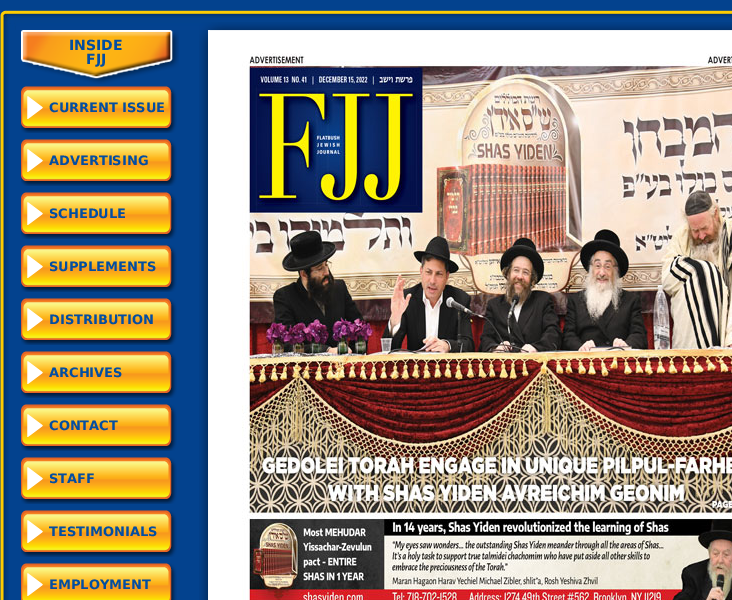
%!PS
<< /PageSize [732 600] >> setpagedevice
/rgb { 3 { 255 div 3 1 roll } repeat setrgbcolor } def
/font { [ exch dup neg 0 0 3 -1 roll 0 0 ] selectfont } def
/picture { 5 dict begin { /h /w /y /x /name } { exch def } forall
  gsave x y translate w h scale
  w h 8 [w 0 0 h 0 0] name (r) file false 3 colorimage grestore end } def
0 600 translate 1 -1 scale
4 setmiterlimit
3 66 142 rgb
0 0 732 600 rectfill
(img/1.rgb) 0 10 732 20 picture
(img/2.rgb) 0 30 9 570 picture
(img/3.rgb) 21 30 158 54 picture
(img/4.rgb) 21 86 156 47 picture
(img/4.rgb) 21 139 156 47 picture
(img/4.rgb) 21 192 156 47 picture
(img/4.rgb) 21 245 156 47 picture
(img/4.rgb) 21 298 156 47 picture
(img/4.rgb) 21 351 156 47 picture
(img/4.rgb) 21 404 156 47 picture
(img/4.rgb) 21 457 156 47 picture
(img/4.rgb) 21 510 156 47 picture
(img/5.rgb) 21 563 156 37 picture
(img/6.rgb) 199 22 533 578 picture
(img/7.rgb) 242 53 490 547 picture
/DejaVuSans-Bold 14 font
3 78 162 rgb
69 50 moveto (INSIDE) show
86 64 moveto (FJJ) show
/DejaVuSans-Bold 13 font
[
  [(CURRENT ISSUE) 49 112]
  [(ADVERTISING) 49 165]
  [(SCHEDULE) 49 218]
  [(SUPPLEMENTS) 49 271]
  [(DISTRIBUTION) 49 324]
  [(ARCHIVES) 49 377]
  [(CONTACT) 49 430]
  [(STAFF) 49 483]
  [(TESTIMONIALS) 49 536]
  [(EMPLOYMENT) 49 589]
] { aload pop moveto show } forall
showpage
